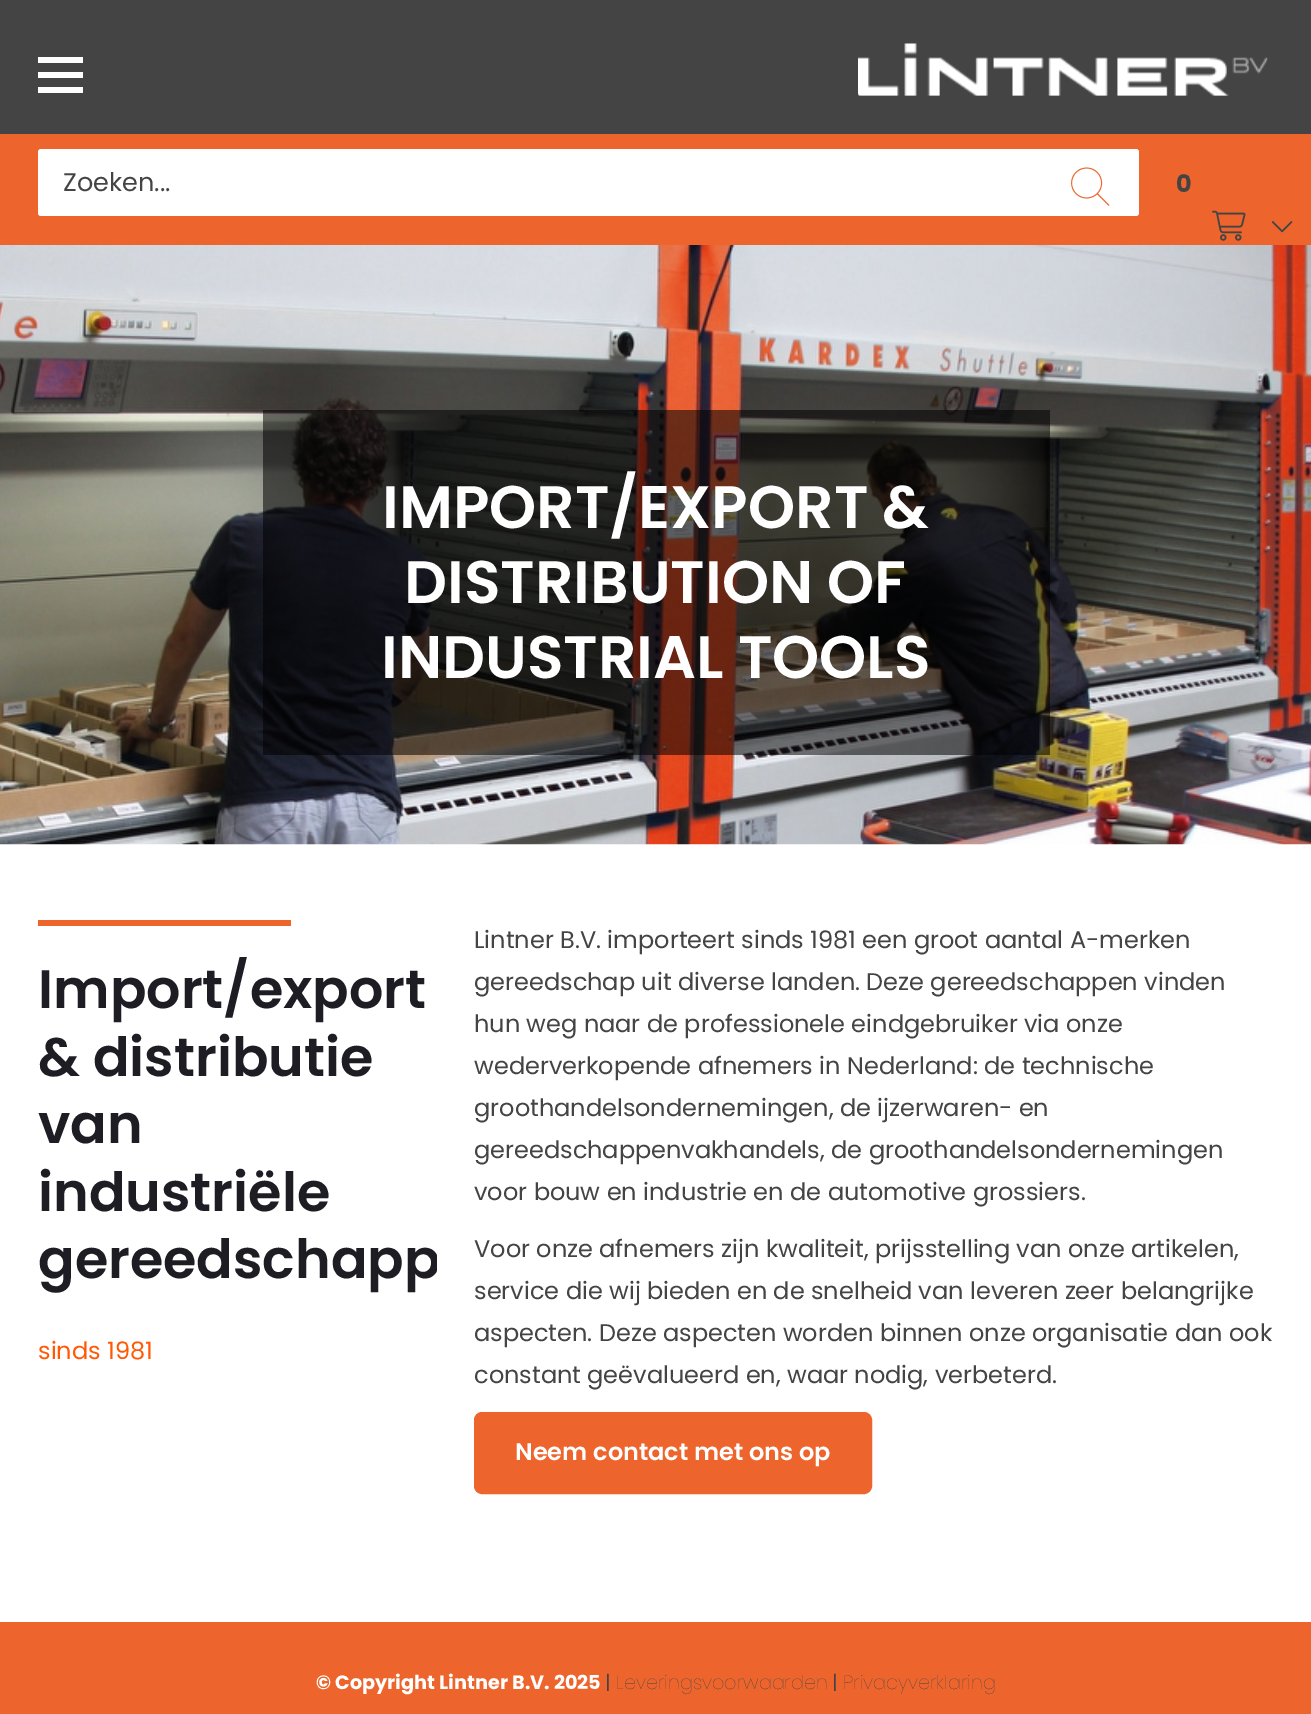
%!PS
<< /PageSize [1311 1714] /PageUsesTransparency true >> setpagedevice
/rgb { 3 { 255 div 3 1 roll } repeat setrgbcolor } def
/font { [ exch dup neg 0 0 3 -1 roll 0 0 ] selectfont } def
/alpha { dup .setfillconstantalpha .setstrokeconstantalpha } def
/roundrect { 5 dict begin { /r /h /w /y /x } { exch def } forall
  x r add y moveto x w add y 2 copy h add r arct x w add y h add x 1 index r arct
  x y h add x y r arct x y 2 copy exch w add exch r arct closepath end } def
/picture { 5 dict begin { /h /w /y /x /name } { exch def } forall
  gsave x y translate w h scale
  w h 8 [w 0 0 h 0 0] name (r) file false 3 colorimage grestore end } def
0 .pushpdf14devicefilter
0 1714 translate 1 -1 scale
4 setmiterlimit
255 255 255 rgb
0 0 1311 1714 rectfill
[
  [0 0 1311 134 68 68 68]
  [38 72 45 6 255 255 255]
  [38 57 45 6 255 255 255]
  [38 87 45 6 255 255 255]
] { aload pop rgb rectfill } forall
(img/1.rgb) 858 43 410 53 picture
237 101 45 rgb
0 134 1311 111 rectfill
255 255 255 rgb
38 149 1101 67 3 roundrect fill
(img/2.rgb) 1071 167 39 39 picture
(img/3.rgb) 1212 210 34 31 picture
(img/4.rgb) 1271 221 22 12 picture
(img/5.rgb) 0 245 1311 600 picture
0.54 alpha
0 0 0 rgb
263 410 787 345 rectfill
1 alpha
237 101 45 rgb
38 920 253 6 rectfill
475.5 1413.5 395 79 6.5 roundrect gsave fill grestore
3 setlinewidth
stroke
0 1622 1311 92 rectfill
/Poppins-Regular 25.5 font
68 68 68 rgb
63 191 moveto (Zoeken...) show
/Poppins-Bold 24 font
1176 192 moveto (0) show
/Poppins-SemiBold 60 font
255 255 255 rgb
[
  [(IMPORT/EXPORT &) 382 528]
  [(DISTRIBUTION OF) 404 603]
  [(INDUSTRIAL TOOLS) 381 678]
] { aload pop moveto show } forall
/Poppins-SemiBold 54 font
30 29 35 rgb
[
  [(Import/export) 38 1008]
  [(& distributie) 38 1076]
  [(van) 38 1143]
  [(industriële) 38 1211]
] { aload pop moveto show } forall
gsave
0 920 437 468 rectclip
38 1278 moveto (gereedschapp) show
grestore
/Poppins-Regular 24 font
255 89 5 rgb
38 1359 moveto (sinds 1981) show
68 68 68 rgb
[
  [(Lintner B.V. importeert sinds 1981 een groot aantal A-merken) 474 948]
  [(gereedschap uit diverse landen. Deze gereedschappen vinden) 474 990]
  [(hun weg naar de professionele eindgebruiker via onze) 474 1032]
  [(wederverkopende afnemers in Nederland: de technische) 474 1074]
  [(groothandelsondernemingen, de ijzerwaren- en) 474 1116]
  [(gereedschappenvakhandels, de groothandelsondernemingen) 474 1158]
  [(voor bouw en industrie en de automotive grossiers.) 474 1200]
  [(Voor onze afnemers zijn kwaliteit, prijsstelling van onze artikelen,) 474 1257]
  [(service die wij bieden en de snelheid van leveren zeer belangrijke) 474 1299]
  [(aspecten. Deze aspecten worden binnen onze organisatie dan ook) 474 1341]
  [(constant geëvalueerd en, waar nodig, verbeterd.) 474 1383]
] { aload pop moveto show } forall
/Poppins-SemiBold 24 font
255 255 255 rgb
515 1460 moveto (Neem contact met ons op) show
/Poppins-Bold 19.25 font
316 1689 moveto (© Copyright Lintner B.V. 2025) show
/Poppins-Regular 19.25 font
68 68 68 rgb
605 1689 moveto (|) show
/Poppins-Thin 19.25 font
616 1689 moveto (Leveringsvoorwaarden) show
/Poppins-Regular 19.25 font
832 1689 moveto (|) show
/Poppins-Thin 19.25 font
843 1689 moveto (Privacyverklaring) show
.poppdf14devicefilter showpage
